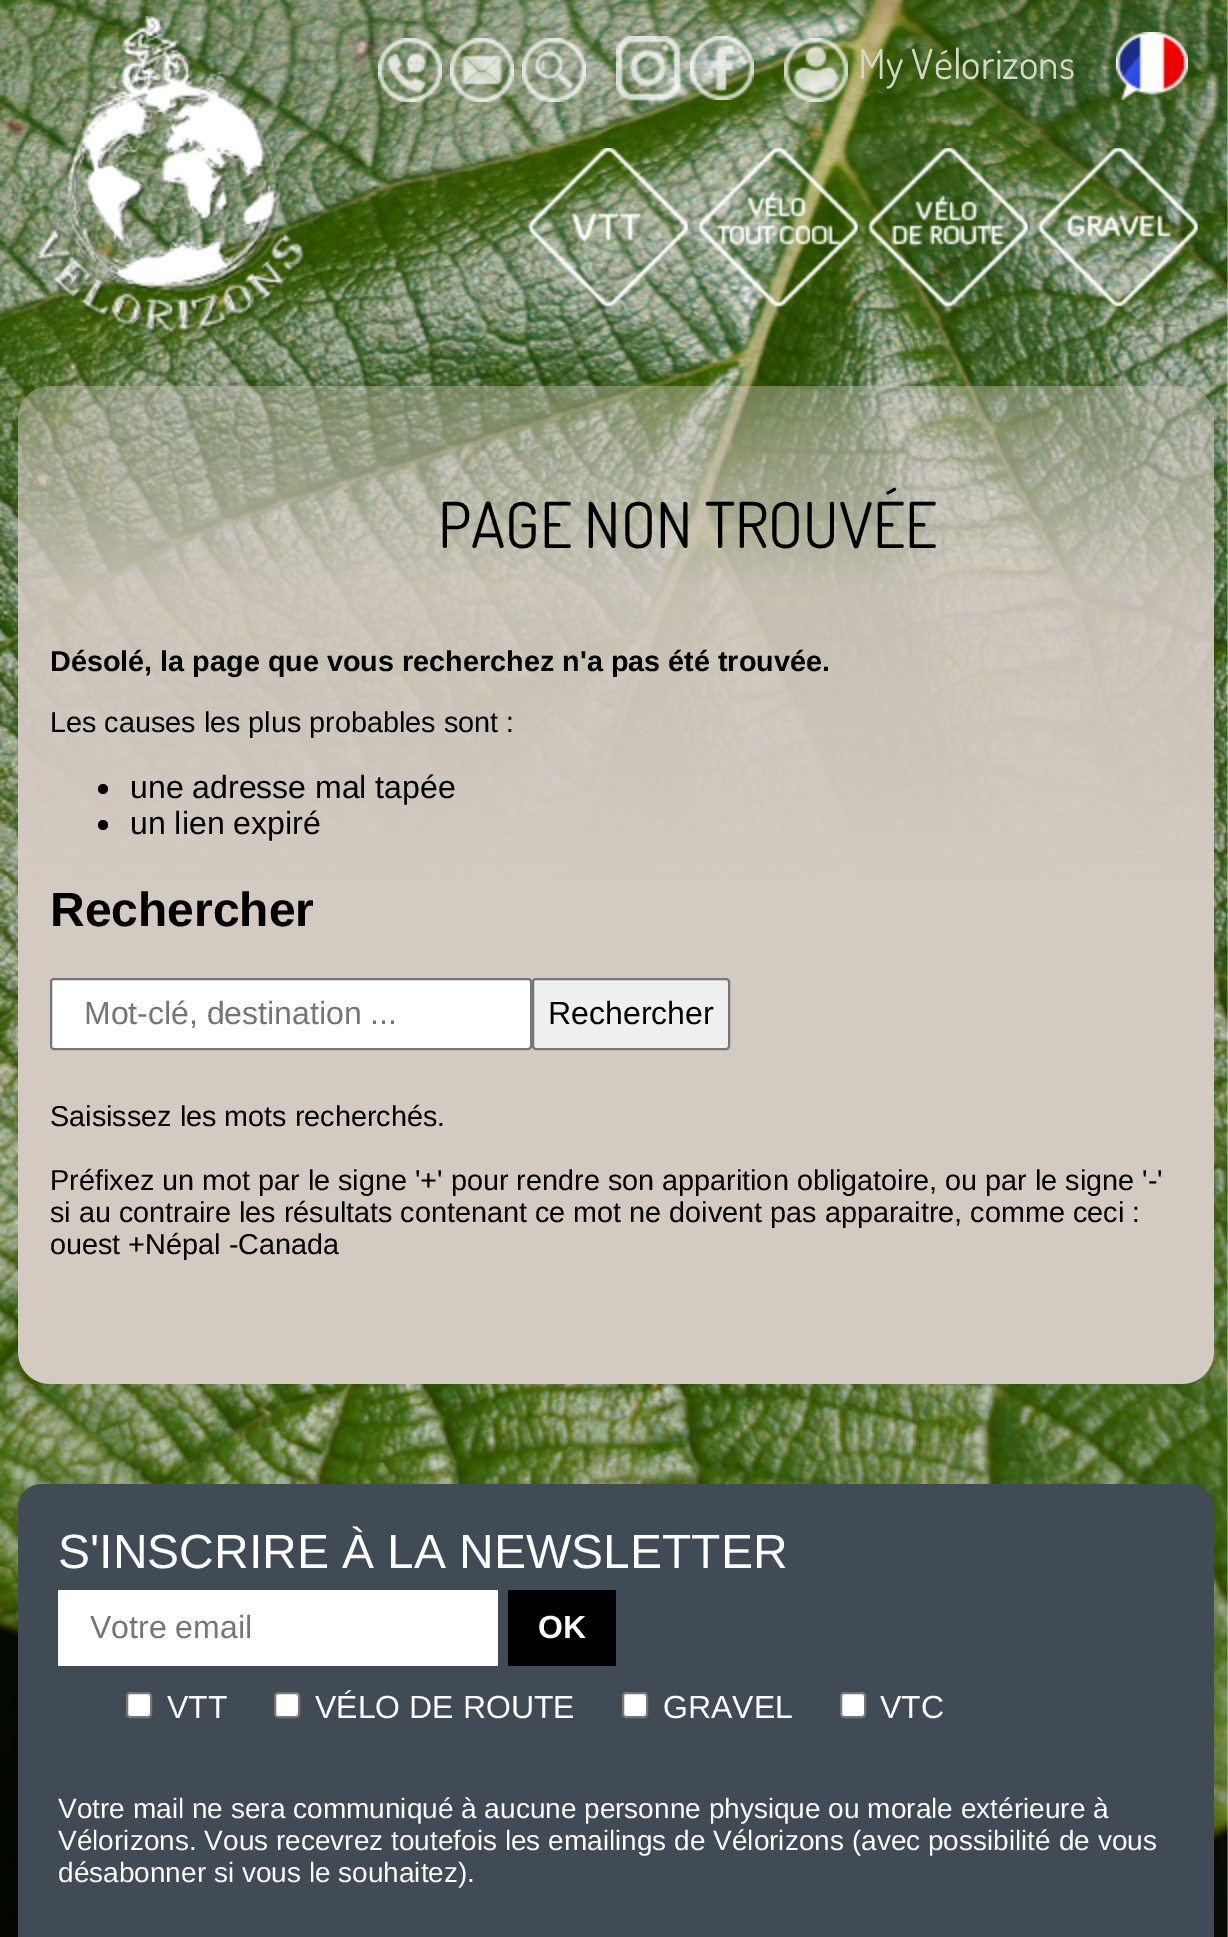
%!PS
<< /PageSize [1228 1937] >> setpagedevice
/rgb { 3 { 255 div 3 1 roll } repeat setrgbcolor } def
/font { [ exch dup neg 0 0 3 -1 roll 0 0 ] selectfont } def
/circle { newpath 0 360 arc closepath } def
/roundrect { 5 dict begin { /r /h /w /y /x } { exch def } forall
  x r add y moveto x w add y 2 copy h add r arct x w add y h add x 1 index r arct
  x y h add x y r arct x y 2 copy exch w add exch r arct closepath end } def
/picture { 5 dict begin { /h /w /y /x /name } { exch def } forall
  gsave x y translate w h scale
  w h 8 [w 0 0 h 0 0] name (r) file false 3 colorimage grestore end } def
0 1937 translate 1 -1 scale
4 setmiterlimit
255 255 255 rgb
0 0 1228 1937 rectfill
(img/1.rgb) 0 0 1228 1937 picture
(img/2.rgb) 37 16 269 319 picture
(img/3.rgb) 378 38 64 64 picture
(img/4.rgb) 450 38 64 64 picture
(img/5.rgb) 522 38 64 64 picture
(img/6.rgb) 616 36 66 66 picture
(img/7.rgb) 690 36 64 64 picture
(img/8.rgb) 784 38 64 64 picture
(img/9.rgb) 1116 32 72 68 picture
(img/10.rgb) 528 148 160 159 picture
(img/11.rgb) 698 148 160 159 picture
(img/12.rgb) 868 148 160 159 picture
(img/13.rgb) 1038 148 160 159 picture
0 0 0 rgb
103 789 5 circle fill
103 825 5 circle fill
255 255 255 rgb
51 979 480 70 3 roundrect gsave fill grestore
118 118 118 rgb
2 setlinewidth
stroke
239 239 239 rgb
533 979 196 70 3 roundrect gsave fill grestore
118 118 118 rgb
stroke
65 75 86 rgb
42 1484 moveto 1190 1484 lineto 1203.5 1484 1214 1494.5 1214 1508 curveto 1214 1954 lineto 18 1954 lineto 18 1508 lineto 18 1494.5 28.5 1484 42 1484 curveto closepath fill
255 255 255 rgb
58 1590 440 76 rectfill
0 0 0 rgb
508 1590 108 76 rectfill
255 255 255 rgb
127 1693 24 24 3 roundrect gsave fill grestore
118 118 118 rgb
stroke
255 255 255 rgb
275 1693 24 24 3 roundrect gsave fill grestore
118 118 118 rgb
stroke
255 255 255 rgb
623 1693 24 24 3 roundrect gsave fill grestore
118 118 118 rgb
stroke
255 255 255 rgb
841 1693 24 24 3 roundrect gsave fill grestore
118 118 118 rgb
stroke
/Dosis-Regular 41.5 font
210 217 201 rgb
858 79 moveto (My Vélorizons) show
/Dosis-Regular 63.25 font
0 0 0 rgb
438 548 moveto (PAGE NON TROUVÉE) show
/LiberationSans-Bold 28.8 font
50 671 moveto (Désolé, la page que vous recherchez n'a pas été trouvée.) show
/LiberationSans-Regular 28.8 font
50 732 moveto (Les causes les plus probables sont :) show
/LiberationSans-Regular 32 font
130 798 moveto (une adresse mal tapée) show
130 834 moveto (un lien expiré) show
/LiberationSans-Bold 48 font
50 926 moveto (Rechercher) show
/LiberationSans-Regular 32 font
117 117 117 rgb
84 1024 moveto (Mot-clé, destination ...) show
0 0 0 rgb
548 1024 moveto (Rechercher) show
/LiberationSans-Regular 28.8 font
[
  [(Saisissez les mots recherchés.) 50 1126]
  [(Préfixez un mot par le signe '+' pour rendre son apparition obligatoire, ou par le signe '-') 50 1190]
  [(si au contraire les résultats contenant ce mot ne doivent pas apparaitre, comme ceci :) 50 1222]
  [(ouest +Népal -Canada) 50 1254]
] { aload pop moveto show } forall
/LiberationSans-Regular 48 font
255 255 255 rgb
58 1568 moveto (S'INSCRIRE À LA NEWSLETTER) show
/LiberationSans-Regular 32 font
117 117 117 rgb
90 1638 moveto (Votre email) show
/LiberationSans-Bold 32 font
255 255 255 rgb
538 1638 moveto (OK) show
/LiberationSans-Regular 32 font
[
  [(VTT) 167 1718]
  [(VÉLO DE ROUTE) 315 1718]
  [(GRAVEL) 663 1718]
  [(VTC) 880 1718]
] { aload pop moveto show } forall
/LiberationSans-Regular 28 font
[
  [(Votre mail ne sera communiqué à aucune personne physique ou morale extérieure à) 58 1818]
  [(Vélorizons. Vous recevrez toutefois les emailings de Vélorizons \(avec possibilité de vous) 58 1850]
  [(désabonner si vous le souhaitez\).) 58 1882]
] { aload pop moveto show } forall
showpage
